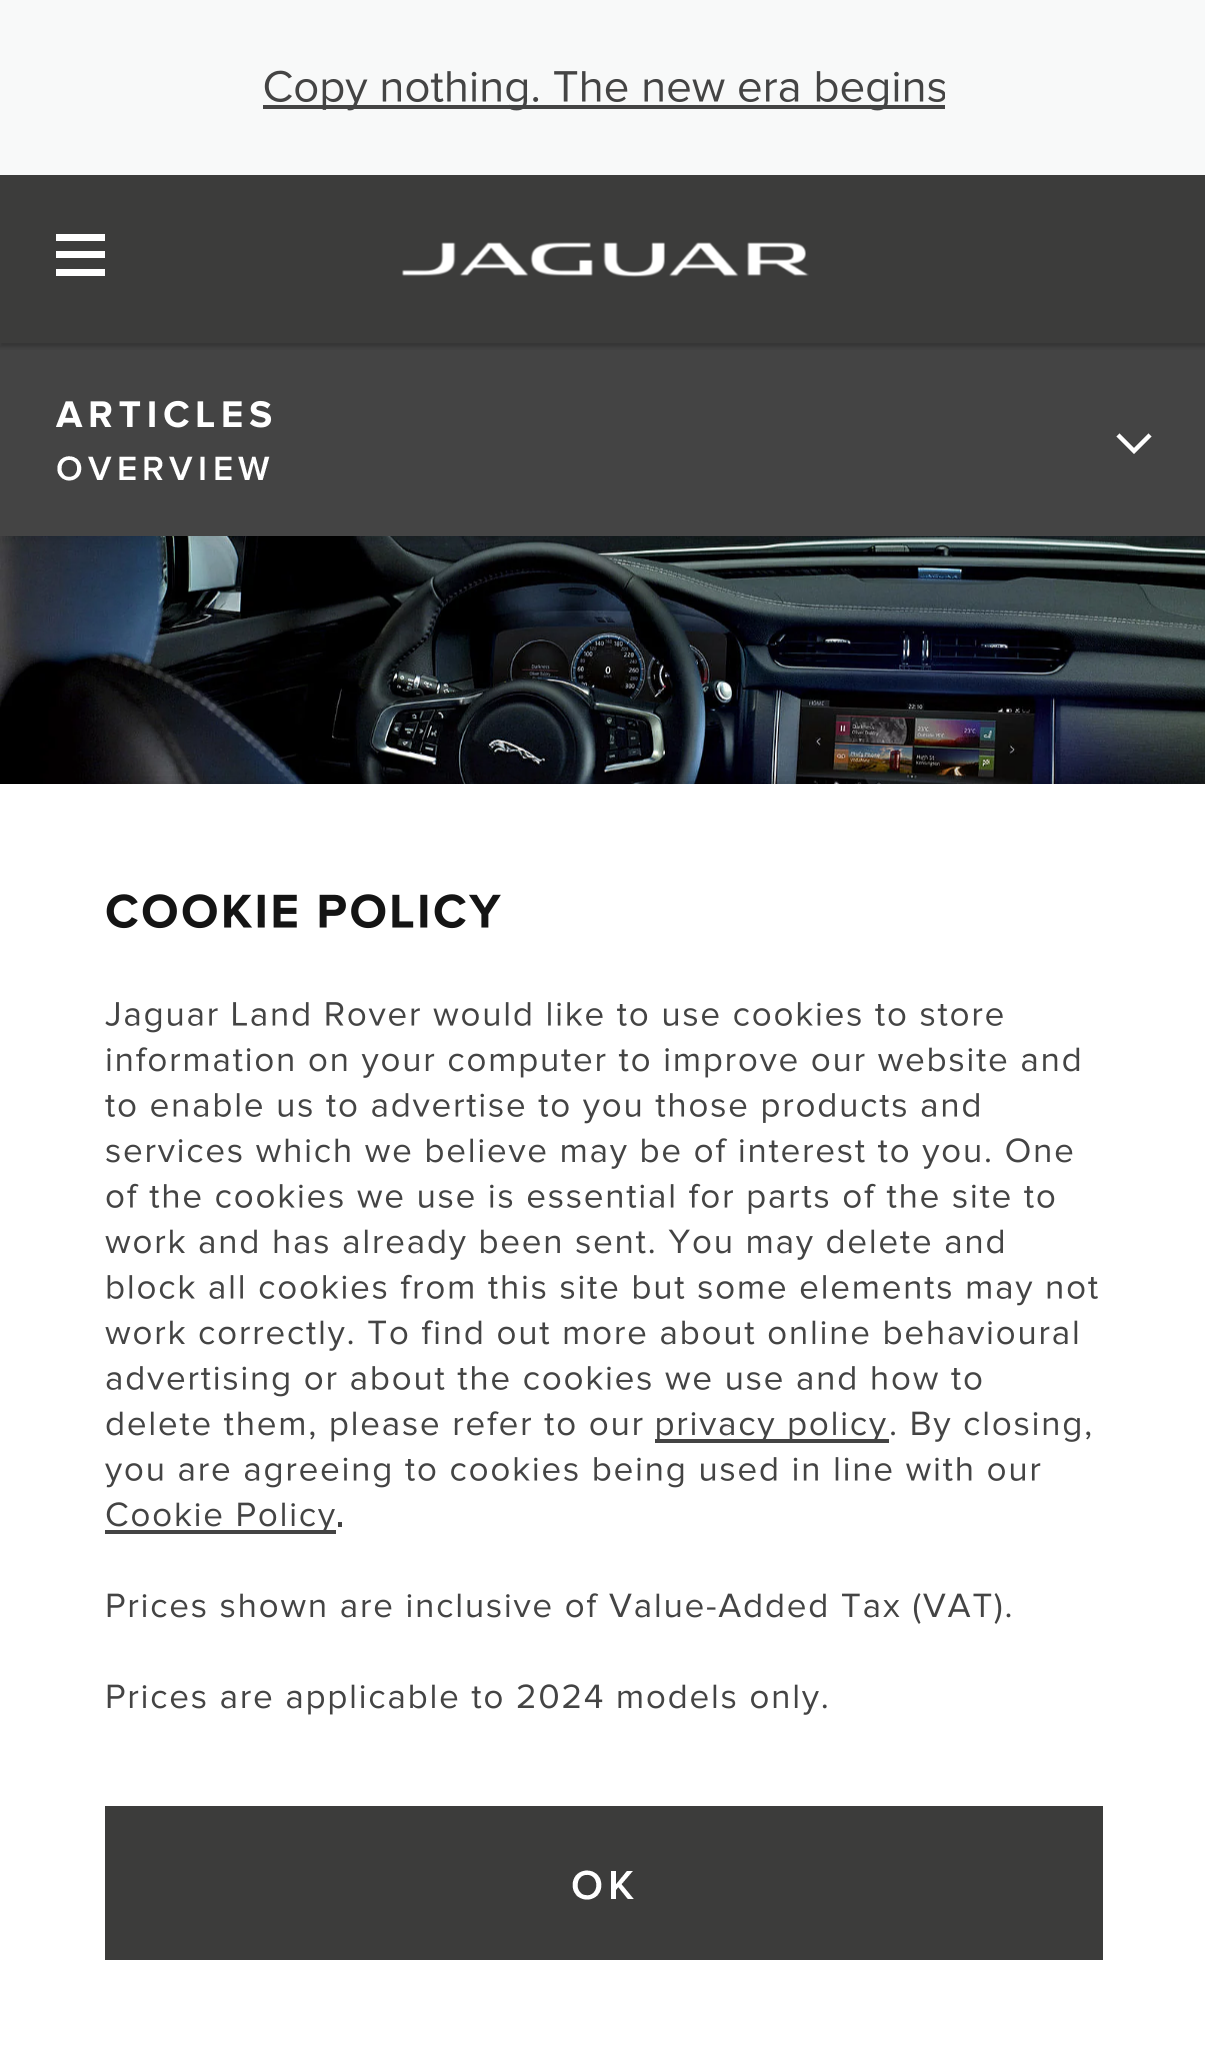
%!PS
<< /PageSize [1205 2065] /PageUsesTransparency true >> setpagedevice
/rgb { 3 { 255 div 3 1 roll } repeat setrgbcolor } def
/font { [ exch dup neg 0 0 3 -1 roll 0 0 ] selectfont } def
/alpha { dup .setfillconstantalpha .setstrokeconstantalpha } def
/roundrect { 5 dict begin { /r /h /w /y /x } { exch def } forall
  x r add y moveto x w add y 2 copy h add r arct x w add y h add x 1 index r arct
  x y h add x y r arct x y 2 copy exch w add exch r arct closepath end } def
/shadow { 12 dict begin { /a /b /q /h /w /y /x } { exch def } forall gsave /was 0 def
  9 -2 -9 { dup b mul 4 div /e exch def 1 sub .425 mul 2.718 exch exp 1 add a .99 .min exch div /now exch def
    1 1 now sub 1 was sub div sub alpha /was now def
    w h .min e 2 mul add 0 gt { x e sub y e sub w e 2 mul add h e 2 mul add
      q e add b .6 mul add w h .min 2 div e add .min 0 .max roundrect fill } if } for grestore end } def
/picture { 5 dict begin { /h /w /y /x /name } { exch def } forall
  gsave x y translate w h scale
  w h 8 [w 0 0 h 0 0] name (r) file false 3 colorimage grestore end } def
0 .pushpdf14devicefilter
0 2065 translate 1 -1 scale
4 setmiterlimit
255 255 255 rgb
0 0 1205 2065 rectfill
248 249 249 rgb
0 0 1205 175 rectfill
68 68 68 rgb
263 105 682 4 rectfill
(img/1.rgb) 264 70 681 41 picture
(img/4.rgb) 0 536 1205 248 picture
1 1 1 rgb
0 347 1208 192 0 7 0.1 shadow
60 60 59 rgb
0 175 1205 168 rectfill
68 68 68 rgb
0 343 1205 193 rectfill
gsave
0 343 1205 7 rectclip
0 0 0 rgb
0 179 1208 168 0 2 0.2 shadow
grestore
255 255 255 rgb
56 269 moveto 105 269 lineto 105 276 lineto 56 276 lineto closepath 56 258 moveto 56 251 lineto 105 251 lineto 105 258 lineto closepath 56 234 moveto 105 234 lineto 105 241 lineto 56 241 lineto closepath fill
(img/2.rgb) 401 242 408 35 picture
(img/3.rgb) 56 400 216 28 picture
1134 454 moveto 1116.5 436.5 lineto 1119.5 433.5 lineto 1134 448 lineto 1148.5 433.5 lineto 1151.5 436.5 lineto closepath fill
1 1 1 rgb
0 784 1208 1281 0 10.5 0.25 shadow
255 255 255 rgb
0 784 1205 1281 rectfill
(img/5.rgb) 106 894 395 35 picture
(img/6.rgb) 105 1002 898 31 picture
(img/7.rgb) 107 1047 973 31 picture
(img/8.rgb) 105 1093 874 31 picture
(img/9.rgb) 106 1138 967 31 picture
(img/10.rgb) 106 1183 949 31 picture
(img/11.rgb) 105 1229 898 31 picture
(img/12.rgb) 107 1274 991 32 picture
(img/13.rgb) 105 1320 973 31 picture
(img/14.rgb) 106 1366 876 31 picture
(img/15.rgb) 106 1411 537 31 picture
(img/16.rgb) 657 1411 229 28 picture
68 68 68 rgb
655 1439 234 4 rectfill
(img/17.rgb) 891 1411 200 31 picture
(img/18.rgb) 105 1457 936 31 picture
(img/19.rgb) 106 1502 229 28 picture
105 1530 231 4 rectfill
338 1522 4 5 rectfill
(img/20.rgb) 107 1593 904 31 picture
(img/21.rgb) 107 1684 720 31 picture
60 60 59 rgb
105 1806 998 154 rectfill
/ProximaNova-SemiBold 35 font
255 255 255 rgb
56 480 moveto 5.25 0 (OVERVIEW) ashow
/ProximaNova-SemiBold 42 font
571 1899 moveto 5 0 (OK) ashow
.poppdf14devicefilter showpage
